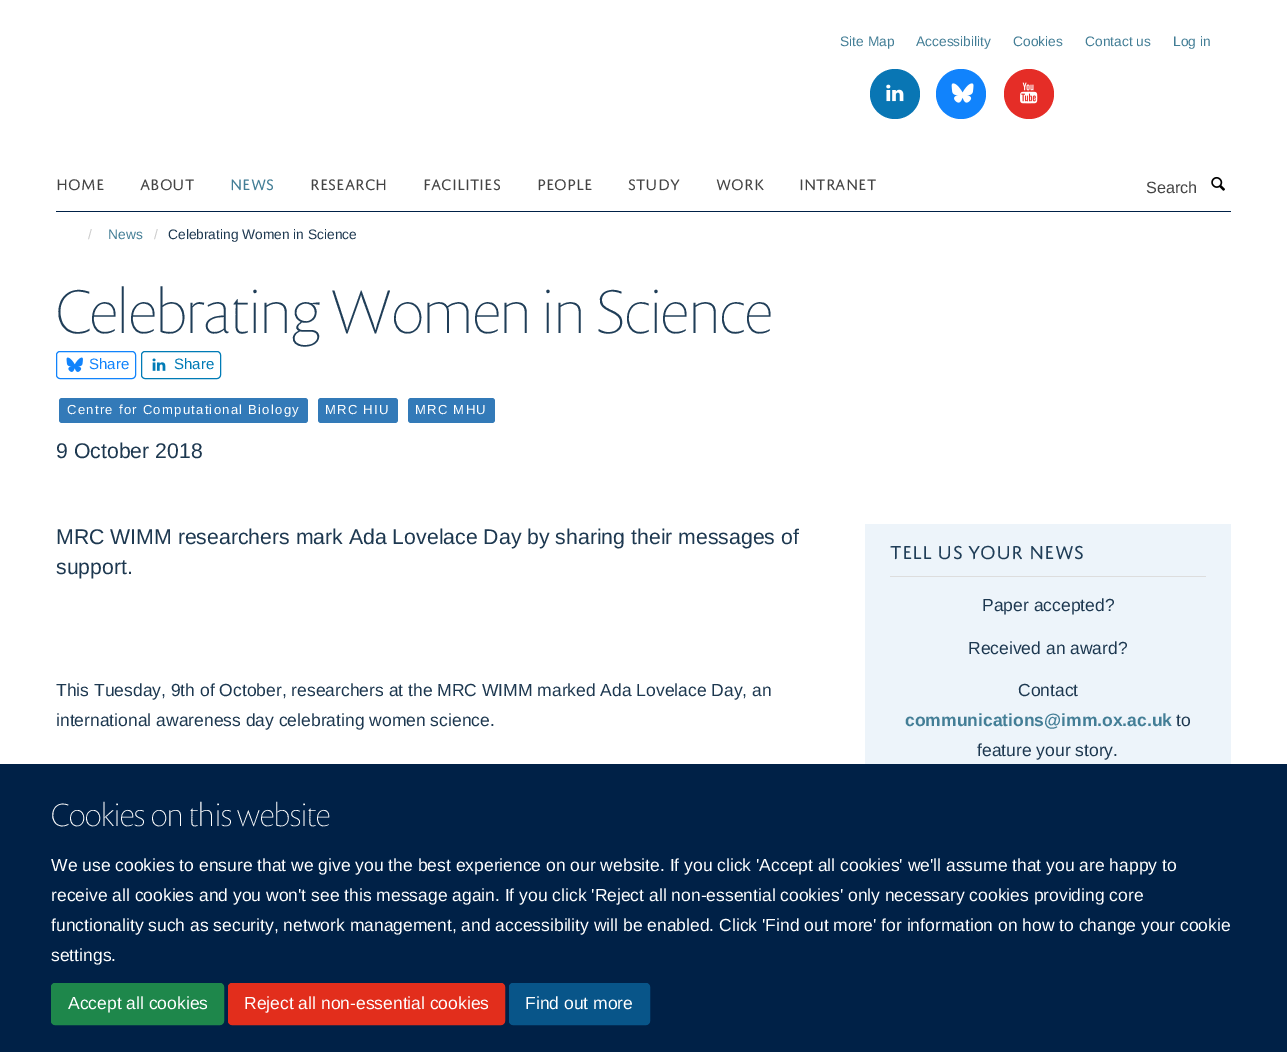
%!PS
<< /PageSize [1287 1052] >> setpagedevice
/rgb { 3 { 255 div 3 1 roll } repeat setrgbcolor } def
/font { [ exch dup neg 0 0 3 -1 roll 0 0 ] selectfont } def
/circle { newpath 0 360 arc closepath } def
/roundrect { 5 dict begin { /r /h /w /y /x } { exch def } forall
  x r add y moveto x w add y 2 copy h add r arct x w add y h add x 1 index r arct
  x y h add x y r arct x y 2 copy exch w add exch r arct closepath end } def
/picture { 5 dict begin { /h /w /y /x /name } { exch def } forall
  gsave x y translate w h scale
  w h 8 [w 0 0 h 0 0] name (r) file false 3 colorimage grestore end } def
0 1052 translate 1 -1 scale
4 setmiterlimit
255 255 255 rgb
0 0 1287 1052 rectfill
9 118 180 rgb
895 94 25 circle fill
(img/1.rgb) 886 84 18 18 picture
17 131 252 rgb
961 94 25 circle fill
(img/2.rgb) 951 83 23 20 picture
229 45 39 rgb
1029 94 25 circle fill
(img/3.rgb) 1020 82 18 22 picture
0 33 71 rgb
56 211 1175 1 rectfill
(img/4.rgb) 1211 176 14 15 picture
17 131 252 rgb
56.5 351.5 79 27 3.5 roundrect stroke
(img/5.rgb) 66 357 17 15 picture
0 123 182 rgb
141.5 351.5 79 27 3.5 roundrect stroke
(img/6.rgb) 152 358 14 13 picture
51 122 184 rgb
59 398 249 25 3 roundrect fill
318 398 80 25 3 roundrect fill
408 398 87 25 3 roundrect fill
[
  [865 524 366 240 237 244 250]
  [890 576 316 1 221 221 221]
  [0 764 1287 288 0 33 71]
] { aload pop rgb rectfill } forall
30 135 75 rgb
51.5 983.5 172 41 3.5 roundrect gsave fill grestore
stroke
226 46 28 rgb
228.5 983.5 276 41 3.5 roundrect gsave fill grestore
stroke
8 85 137 rgb
509.5 983.5 140 41 3.5 roundrect gsave fill grestore
stroke
/LiberationSans-Regular 13.75 font
67 126 150 rgb
[
  [(Site Map) 840 46]
  [(Accessibility) 916 46]
  [(Cookies) 1013 46]
  [(Contact us) 1085 46]
  [(Log in) 1173 46]
] { aload pop moveto show } forall
/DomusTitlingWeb-Regular 16.25 font
68 68 68 rgb
56 190 moveto (HOME) show
140 190 moveto (ABOUT) show
67 126 150 rgb
230 190 moveto (NEWS) show
68 68 68 rgb
[
  [(RESEARCH) 310 190]
  [(FACILITIES) 423 190]
  [(PEOPLE) 537 190]
  [(STUDY) 628 190]
  [(WORK) 716 190]
  [(INTRANET) 799 190]
] { aload pop moveto show } forall
/LiberationSans-Regular 16.25 font
1146 193 moveto (Search) show
/LiberationSans-Regular 13.75 font
204 204 204 rgb
88 239 moveto (/) show
67 126 150 rgb
108 239 moveto (News) show
204 204 204 rgb
154 239 moveto (/) show
29 56 80 rgb
168 239 moveto (Celebrating Women in Science) show
/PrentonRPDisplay-Thin 62.5 font
32 62 88 rgb
56 333 moveto (Celebrating Women in Science) show
/LiberationSans-Regular 15 font
17 131 252 rgb
89 369 moveto (Share) show
0 123 182 rgb
174 369 moveto (Share) show
/LiberationSans-Regular 13.1 font
255 255 255 rgb
67 414 moveto 1.25 0 (Centre for Computational Biology) ashow
325 414 moveto 1.25 0 (MRC HIU) ashow
415 414 moveto 1.25 0 (MRC MHU) ashow
/LiberationSans-Regular 21.25 font
29 56 80 rgb
[
  [(9 October 2018) 56 458]
  [(MRC WIMM researchers mark Ada Lovelace Day by sharing their messages of) 56 544]
  [(support.) 56 574]
] { aload pop moveto show } forall
/LiberationSans-Regular 17.5 font
56 696 moveto (This Tuesday, 9th of October, researchers at the MRC WIMM marked Ada Lovelace Day, an) show
56 726 moveto (international awareness day celebrating women science.) show
/DomusTitlingWeb-Regular 20 font
32 62 88 rgb
890 559 moveto (TELL US YOUR NEWS) show
/LiberationSans-Regular 17.5 font
29 56 80 rgb
[
  [(Paper accepted?) 982 611]
  [(Received an award?) 968 654]
  [(Contact) 1018 696]
] { aload pop moveto show } forall
/LiberationSans-Bold 17.5 font
67 126 150 rgb
905 726 moveto (communications@imm.ox.ac.uk) show
/LiberationSans-Regular 17.5 font
29 56 80 rgb
1176 726 moveto (to) show
977 756 moveto (feature your story.) show
/PrentonRPDisplay-Thin 32.5 font
255 255 255 rgb
51 826 moveto (Cookies on this website) show
/LiberationSans-Regular 17.5 font
[
  [(We use cookies to ensure that we give you the best experience on our website. If you click 'Accept all cookies' we'll assume that you are happy to) 51 871]
  [(receive all cookies and you won't see this message again. If you click 'Reject all non-essential cookies' only necessary cookies providing core) 51 901]
  [(functionality such as security, network management, and accessibility will be enabled. Click 'Find out more' for information on how to change your cookie) 51 931]
  [(settings.) 51 961]
  [(Accept all cookies) 68 1009]
  [(Reject all non-essential cookies) 244 1009]
  [(Find out more) 525 1009]
] { aload pop moveto show } forall
showpage
